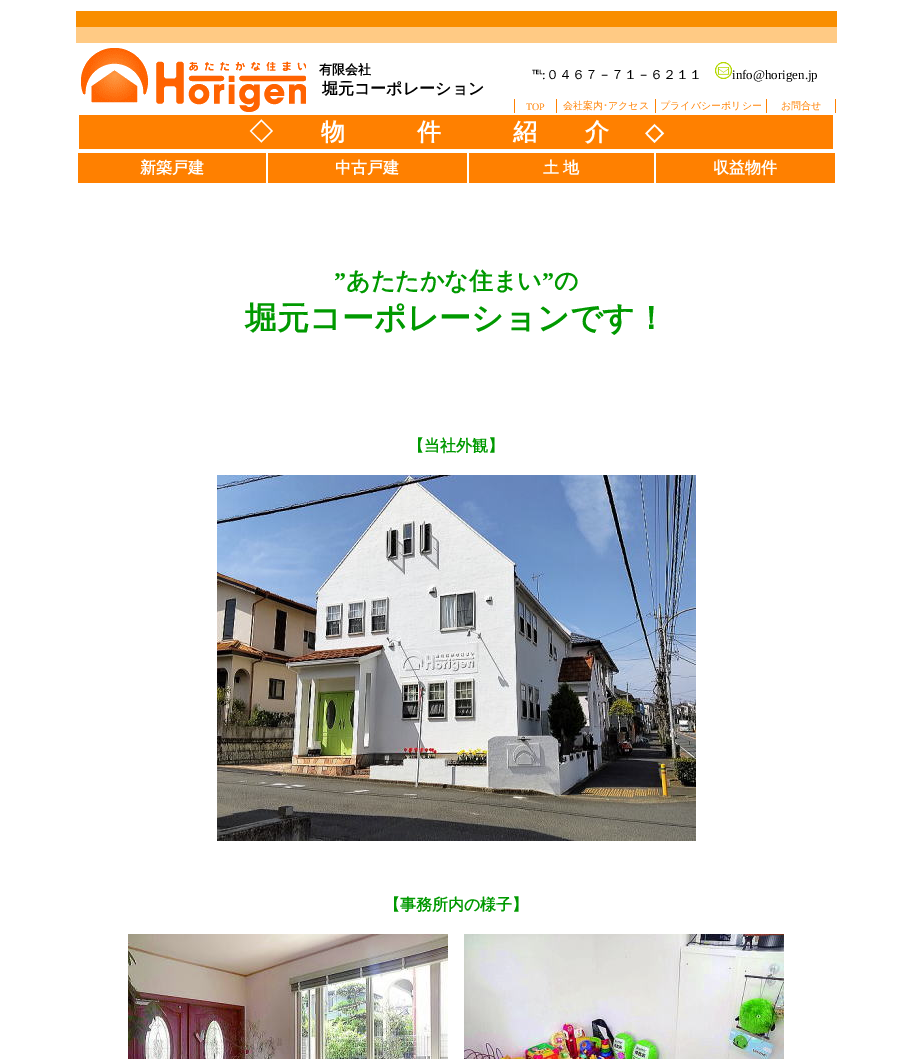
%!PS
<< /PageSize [912 1059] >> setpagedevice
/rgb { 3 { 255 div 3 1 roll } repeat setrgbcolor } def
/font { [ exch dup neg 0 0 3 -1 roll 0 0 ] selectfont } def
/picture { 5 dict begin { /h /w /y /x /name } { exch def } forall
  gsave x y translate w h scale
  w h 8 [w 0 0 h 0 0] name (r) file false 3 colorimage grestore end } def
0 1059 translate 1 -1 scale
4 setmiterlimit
255 255 255 rgb
0 0 912 1059 rectfill
249 142 0 rgb
76 11 761 16 rectfill
255 202 132 rgb
76 27 761 16 rectfill
(img/1.rgb) 81 48 225 64 picture
(img/2.rgb) 715 62 17 17 picture
[
  [556 99 1 14 255 128 0]
  [514 99 1 14 255 128 0]
  [655 99 1 14 255 128 0]
  [835 99 1 14 255 128 0]
  [766 99 1 14 255 128 0]
  [79 115 754 34 255 128 0]
  [78 153 188 30 255 128 0]
  [268 153 199 30 255 128 0]
  [469 153 185 30 255 128 0]
  [656 153 179 30 255 128 0]
] { aload pop rgb rectfill } forall
(img/3.rgb) 217 475 479 366 picture
(img/4.rgb) 128 934 320 125 picture
(img/5.rgb) 464 934 320 125 picture
/WenQuanYiZenHei-Bold 13 font
0 0 0 rgb
319 74 moveto (有限会社) show
/WenQuanYiZenHei-Bold 16 font
322 94 moveto (堀元コーポレーション) show
/NotoSans-Regular 13 font
532 79 moveto (℡) show
/LiberationSerif-Regular 13 font
542 79 moveto (:) show
/WenQuanYiZenHei-Medium 13 font
546 79 moveto (０４６７－７１－６２１１) show
/LiberationSerif-Regular 13 font
732 79 moveto (info@horigen.jp) show
/LiberationSerif-Regular 10 font
255 128 0 rgb
526 110 moveto (TOP) show
/WenQuanYiZenHei-Medium 10 font
563 109 moveto (会社案内) show
/IPAGothic-Regular 10 font
603 109 moveto (･) show
/WenQuanYiZenHei-Medium 10 font
[
  [(アクセス) 608 109]
  [(プライバシーポリシー) 660 109]
  [(お問合せ) 781 109]
] { aload pop moveto show } forall
/WenQuanYiZenHei-Bold 24 font
255 255 255 rgb
249 140 moveto (◇　　物　　　件　　　紹　　介) show
/DejaVuSans-Bold 24 font
645 140 moveto (◇) show
/WenQuanYiZenHei-Bold 16 font
140 173 moveto (新築戸建) show
335 173 moveto (中古戸建) show
543 173 moveto -1 0 32 (土 地) widthshow
713 173 moveto (収益物件) show
/LiberationSerif-Bold 24 font
0 153 0 rgb
334 289 moveto (”) show
/WenQuanYiZenHei-Bold 24 font
346 289 moveto (あたたかな住まい) show
/LiberationSerif-Bold 24 font
542 289 moveto (”) show
/WenQuanYiZenHei-Bold 24 font
554 289 moveto (の) show
/WenQuanYiZenHei-Bold 32 font
245 329 moveto (堀元コーポレーションです！) show
/WenQuanYiZenHei-Bold 16 font
408 451 moveto (【当社外観】) show
384 910 moveto (【事務所内の様子】) show
showpage
